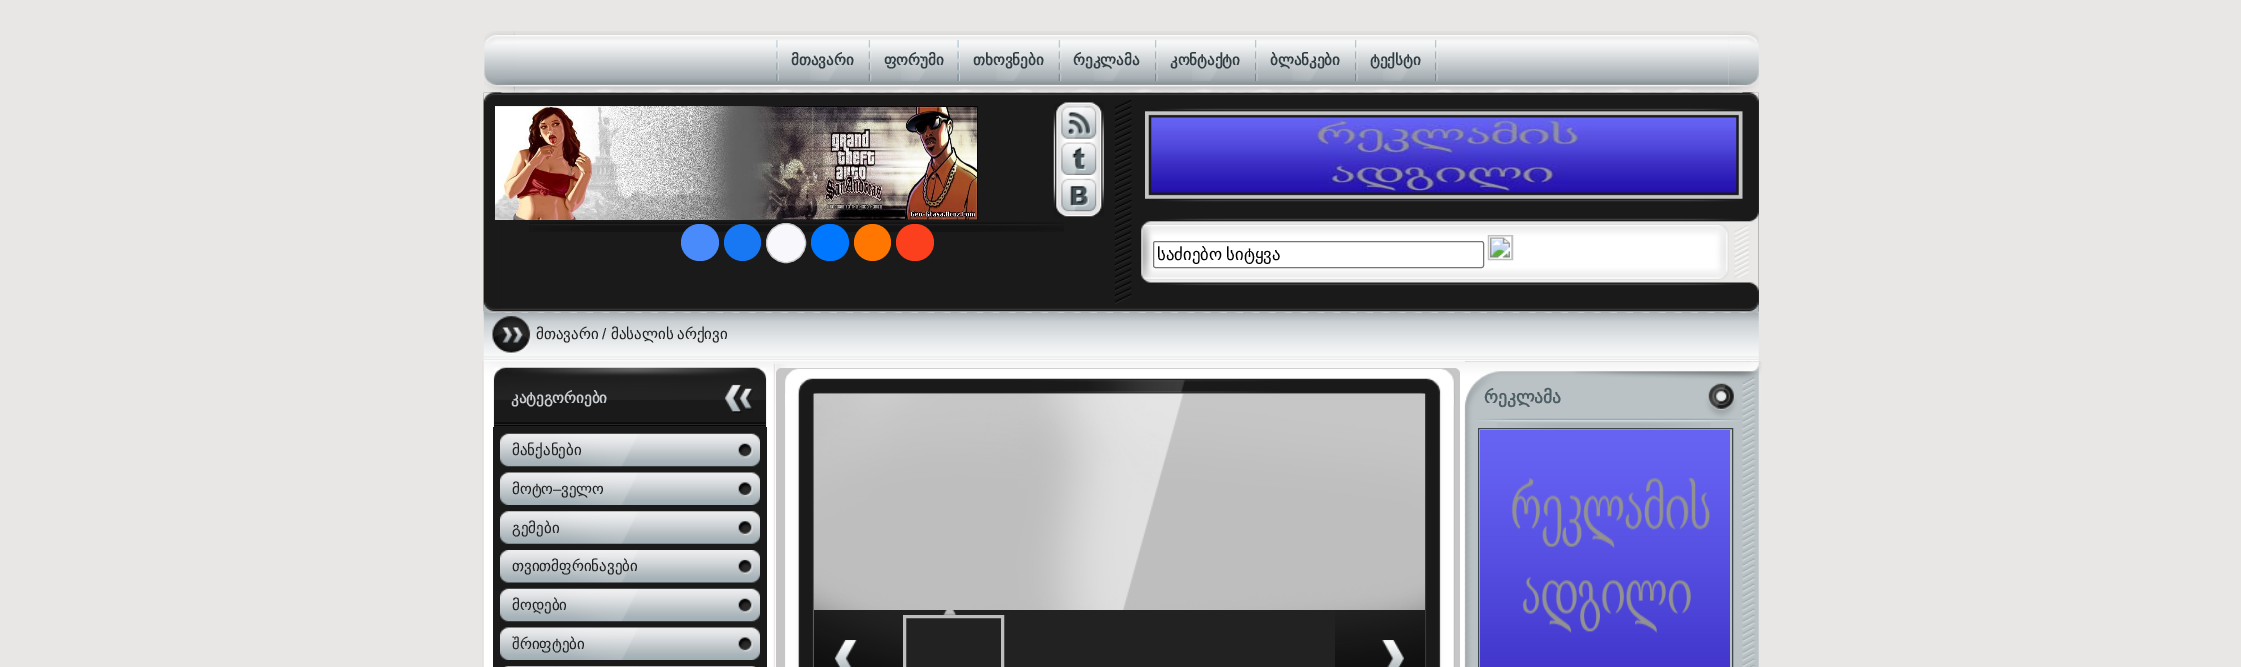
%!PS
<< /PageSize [2241 667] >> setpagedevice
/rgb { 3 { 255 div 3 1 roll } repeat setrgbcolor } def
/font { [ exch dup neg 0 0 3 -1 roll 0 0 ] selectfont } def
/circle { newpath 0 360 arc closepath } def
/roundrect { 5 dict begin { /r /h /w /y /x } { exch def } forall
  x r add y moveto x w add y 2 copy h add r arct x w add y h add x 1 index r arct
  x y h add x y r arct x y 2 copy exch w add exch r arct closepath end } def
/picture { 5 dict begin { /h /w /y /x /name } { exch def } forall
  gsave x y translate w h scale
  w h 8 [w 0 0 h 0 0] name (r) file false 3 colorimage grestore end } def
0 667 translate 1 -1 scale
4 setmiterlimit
232 231 230 rgb
0 0 2241 667 rectfill
(img/1.rgb) 513 31 1216 61 picture
(img/2.rgb) 484 31 31 61 picture
(img/3.rgb) 1728 31 31 61 picture
(img/4.rgb) 776 40 3 41 picture
(img/5.rgb) 810 54 33 27 picture
(img/6.rgb) 868 40 4 41 picture
(img/7.rgb) 901 54 32 27 picture
(img/8.rgb) 957 40 3 41 picture
(img/9.rgb) 996 54 33 27 picture
(img/6.rgb) 1058 40 4 41 picture
(img/10.rgb) 1094 54 33 27 picture
(img/11.rgb) 1155 40 3 41 picture
(img/12.rgb) 1192 54 33 27 picture
(img/11.rgb) 1255 40 3 41 picture
(img/13.rgb) 1292 54 33 27 picture
(img/11.rgb) 1355 40 3 41 picture
(img/14.rgb) 1383 54 32 27 picture
(img/11.rgb) 1435 40 3 41 picture
(img/15.rgb) 483 92 1276 221 picture
(img/16.rgb) 483 92 19 221 picture
(img/17.rgb) 1742 92 17 221 picture
(img/18.rgb) 1115 100 17 204 picture
(img/19.rgb) 495 106 483 114 picture
(img/20.rgb) 495 106 483 114 picture
(img/21.rgb) 1053 102 51 115 picture
(img/22.rgb) 1061 106 36 33 picture
(img/23.rgb) 1061 142 36 33 picture
(img/24.rgb) 1061 178 36 34 picture
(img/25.rgb) 529 222 535 10 picture
73 139 250 rgb
681 224 38 37 18.5 roundrect fill
24 119 242 rgb
742.5 242.5 18.5 circle fill
248 248 252 rgb
786 243 19.5 circle gsave fill grestore
196 196 196 rgb
stroke
0 119 255 rgb
811 224 38 37 18.5 roundrect fill
255 119 0 rgb
872.5 242.5 18.5 circle fill
252 63 29 rgb
896 224 38 37 18.5 roundrect fill
(img/26.rgb) 1145 108 598 94 picture
(img/27.rgb) 1151 117 586 76 picture
(img/28.rgb) 1141 212 618 80 picture
255 255 255 rgb
1153.5 241.5 330 26 2 roundrect gsave fill grestore
118 118 118 rgb
stroke
(img/29.rgb) 1487 235 25 25 picture
192 192 192 rgb
1488.5 235.5 24 24 rectstroke
(img/30.rgb) 483 312 1276 50 picture
(img/31.rgb) 492 316 40 38 picture
(img/32.rgb) 482 361 1277 306 picture
(img/33.rgb) 484 361 1278 44 picture
(img/34.rgb) 493 367 274 60 picture
26 26 26 rgb
493 427 274 240 rectfill
(img/35.rgb) 500 433 260 34 picture
(img/36.rgb) 500 472 260 33 picture
(img/37.rgb) 500 511 260 33 picture
(img/38.rgb) 500 550 260 33 picture
(img/35.rgb) 500 588 260 34 picture
(img/36.rgb) 500 627 260 33 picture
(img/39.rgb) 504 666 252 1 picture
198 198 198 rgb
776 368 684 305 6 roundrect fill
(img/40.rgb) 785 368 670 37 picture
(img/41.rgb) 785 393 670 274 picture
34 34 34 rgb
814 610 611 57 rectfill
190 190 190 rgb
814 394 611 216 rectfill
(img/42.rgb) 813 393 612 274 picture
34 34 34 rgb
903 610 432 57 rectfill
(img/43.rgb) 834 640 23 27 picture
190 190 190 rgb
3 setlinewidth
904.5 616.5 98 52 rectstroke
(img/44.rgb) 943 610 14 5 picture
(img/45.rgb) 1382 640 22 27 picture
(img/46.rgb) 1476 383 265 39 picture
(img/47.rgb) 1497 422 214 8 picture
58 70 75 rgb
1 setlinewidth
1478.5 428.5 254 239 rectstroke
(img/48.rgb) 1480 430 250 237 picture
/DejaVuSans-Bold 15 font
48 61 66 rgb
[
  [(მთავარი) 791 65]
  [(ფორუმი) 884 65]
  [(თხოვნები) 973 65]
  [(რეკლამა) 1073 65]
  [(კონტაქტი) 1170 65]
  [(ბლანკები) 1270 65]
  [(ტექსტი) 1370 65]
] { aload pop moveto show } forall
gsave
1158 245 321 19 rectclip
/DejaVuSans-Regular 16.75 font
0 0 0 rgb
1157 260 moveto -1 0 32 (საძიებო სიტყვა) widthshow
grestore
/DejaVuSans-Regular 15 font
32 32 32 rgb
536 339 moveto (მთავარი) show
/LiberationSans-Regular 15 font
602 339 moveto (/) show
/DejaVuSans-Regular 15 font
611 339 moveto -1 0 32 (მასალის არქივი) widthshow
/DejaVuSans-Bold 15 font
201 207 211 rgb
511 403 moveto (კატეგორიები) show
/DejaVuSans-Regular 15 font
32 32 32 rgb
512 455 moveto (მანქანები) show
512 494 moveto (მოტო) show
/LiberationSans-Regular 15 font
553 494 moveto (–) show
/DejaVuSans-Regular 15 font
[
  [(ველო) 561 494]
  [(გემები) 512 533]
  [(თვითმფრინავები) 512 571]
  [(მოდები) 512 610]
  [(შრიფტები) 512 649]
] { aload pop moveto show } forall
/DejaVuSans-Bold 17.5 font
77 93 100 rgb
1484 403 moveto (რეკლამა) show
showpage
